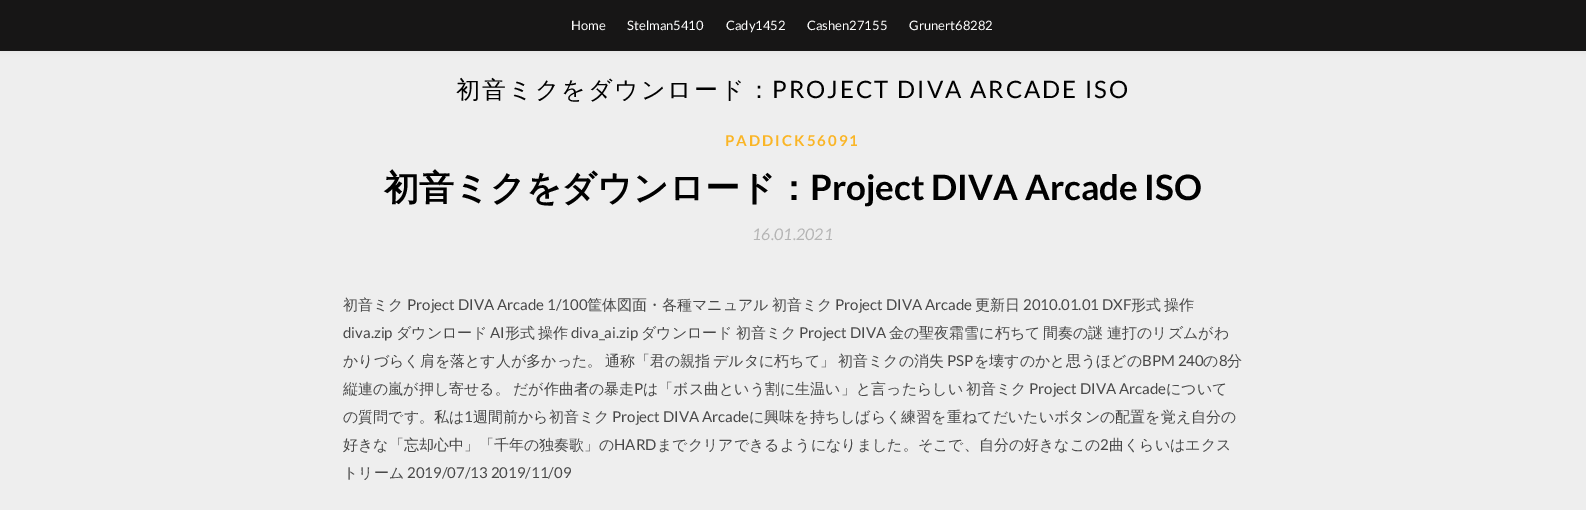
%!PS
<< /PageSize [1586 510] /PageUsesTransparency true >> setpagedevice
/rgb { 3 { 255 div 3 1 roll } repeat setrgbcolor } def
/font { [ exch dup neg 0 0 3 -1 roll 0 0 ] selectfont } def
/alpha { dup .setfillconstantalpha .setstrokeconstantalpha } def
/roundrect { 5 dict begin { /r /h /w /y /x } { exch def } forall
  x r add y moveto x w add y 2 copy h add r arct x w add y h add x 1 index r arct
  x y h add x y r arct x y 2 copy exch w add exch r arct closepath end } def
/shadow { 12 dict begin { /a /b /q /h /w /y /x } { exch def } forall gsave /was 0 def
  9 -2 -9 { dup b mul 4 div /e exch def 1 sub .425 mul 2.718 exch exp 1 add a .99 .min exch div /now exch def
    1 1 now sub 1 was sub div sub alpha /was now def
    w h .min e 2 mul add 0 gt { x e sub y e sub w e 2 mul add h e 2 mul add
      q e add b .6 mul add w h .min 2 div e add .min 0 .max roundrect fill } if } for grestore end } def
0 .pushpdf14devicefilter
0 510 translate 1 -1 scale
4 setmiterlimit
238 238 238 rgb
0 0 1586 510 rectfill
0 0 0 rgb
0 0 1586 51 0 5 0.05 shadow
23 22 22 rgb
0 0 1586 51 rectfill
/Lato-Regular 13 font
255 255 255 rgb
[
  [(Home) 571 30]
  [(Stelman5410) 627 30]
  [(Cady1452) 726 30]
  [(Cashen27155) 807 30]
  [(Grunert68282) 909 30]
] { aload pop moveto show } forall
/WenQuanYiZenHei-Medium 24 font
0 0 0 rgb
456 98 moveto 2 0 (初音ミクをダウンロード：) ashow
/Lato-Regular 24 font
772 98 moveto 2 0 (PROJECT DIVA ARCADE ISO) ashow
/Lato-Bold 15 font
250 181 38 rgb
725 146 moveto 2 0 (PADDICK56091) ashow
/WenQuanYiZenHei-Bold 35 font
0 0 0 rgb
384 200 moveto (初音ミクをダウンロード：) show
/Lato-Bold 35 font
810 200 moveto (Project DIVA Arcade ISO) show
/Lato-Italic 16 font
181 181 181 rgb
752 240 moveto (16.01.2021) show
/WenQuanYiZenHei-Medium 15 font
72 72 72 rgb
343 310 moveto (初音ミク) show
/Lato-Regular 15 font
407 310 moveto (Project DIVA Arcade 1/100) show
/WenQuanYiZenHei-Medium 15 font
587 310 moveto (筐体図面・各種マニュアル) show
772 310 moveto (初音ミク) show
/Lato-Regular 15 font
835 310 moveto (Project DIVA Arcade) show
/WenQuanYiZenHei-Medium 15 font
975 310 moveto (更新日) show
/Lato-Regular 15 font
1023 310 moveto (2010.01.01 DXF) show
/WenQuanYiZenHei-Medium 15 font
1131 310 moveto (形式) show
1164 310 moveto (操作) show
/Lato-Regular 15 font
343 338 moveto (diva.zip) show
/WenQuanYiZenHei-Medium 15 font
396 338 moveto (ダウンロード) show
/Lato-Regular 15 font
490 338 moveto (AI) show
/WenQuanYiZenHei-Medium 15 font
505 338 moveto (形式) show
538 338 moveto (操作) show
/Lato-Regular 15 font
571 338 moveto (diva_ai.zip) show
/WenQuanYiZenHei-Medium 15 font
641 338 moveto (ダウンロード) show
736 338 moveto (初音ミク) show
/Lato-Regular 15 font
799 338 moveto (Project DIVA) show
/WenQuanYiZenHei-Medium 15 font
[
  [(金の聖夜霜雪に朽ちて) 889 338]
  [(間奏の謎) 1043 338]
  [(連打のリズムがわ) 1107 338]
  [(かりづらく肩を落とす人が多かった。) 343 366]
  [(通称「君の親指) 605 366]
  [(デルタに朽ちて」) 713 366]
  [(初音ミクの消失) 838 366]
] { aload pop moveto show } forall
/Lato-Regular 15 font
947 366 moveto (PSP) show
/WenQuanYiZenHei-Medium 15 font
974 366 moveto (を壊すのかと思うほどの) show
/Lato-Regular 15 font
1142 366 moveto (BPM 240) show
/WenQuanYiZenHei-Medium 15 font
1203 366 moveto (の) show
/Lato-Regular 15 font
1219 366 moveto (8) show
/WenQuanYiZenHei-Medium 15 font
[
  [(分) 1227 366]
  [(縦連の嵐が押し寄せる。) 343 394]
  [(だが作曲者の暴走) 513 394]
] { aload pop moveto show } forall
/Lato-Regular 15 font
634 394 moveto (P) show
/WenQuanYiZenHei-Medium 15 font
643 394 moveto (は「ボス曲という割に生温い」と言ったらしい) show
966 394 moveto (初音ミク) show
/Lato-Regular 15 font
1029 394 moveto (Project DIVA Arcade) show
/WenQuanYiZenHei-Medium 15 font
1166 394 moveto (について) show
343 422 moveto (の質問です。私は) show
/Lato-Regular 15 font
464 422 moveto (1) show
/WenQuanYiZenHei-Medium 15 font
473 422 moveto (週間前から初音ミク) show
/Lato-Regular 15 font
612 422 moveto (Project DIVA Arcade) show
/WenQuanYiZenHei-Medium 15 font
749 422 moveto (に興味を持ちしばらく練習を重ねてだいたいボタンの配置を覚え自分の) show
343 450 moveto (好きな「忘却心中」「千年の独奏歌」の) show
/Lato-Regular 15 font
614 450 moveto (HARD) show
/WenQuanYiZenHei-Medium 15 font
657 450 moveto (までクリアできるようになりました。そこで、自分の好きなこの) show
/Lato-Regular 15 font
1100 450 moveto (2) show
/WenQuanYiZenHei-Medium 15 font
1109 450 moveto (曲くらいはエクス) show
343 478 moveto (トリーム) show
/Lato-Regular 15 font
407 478 moveto (2019/07/13 2019/11/09) show
.poppdf14devicefilter showpage
